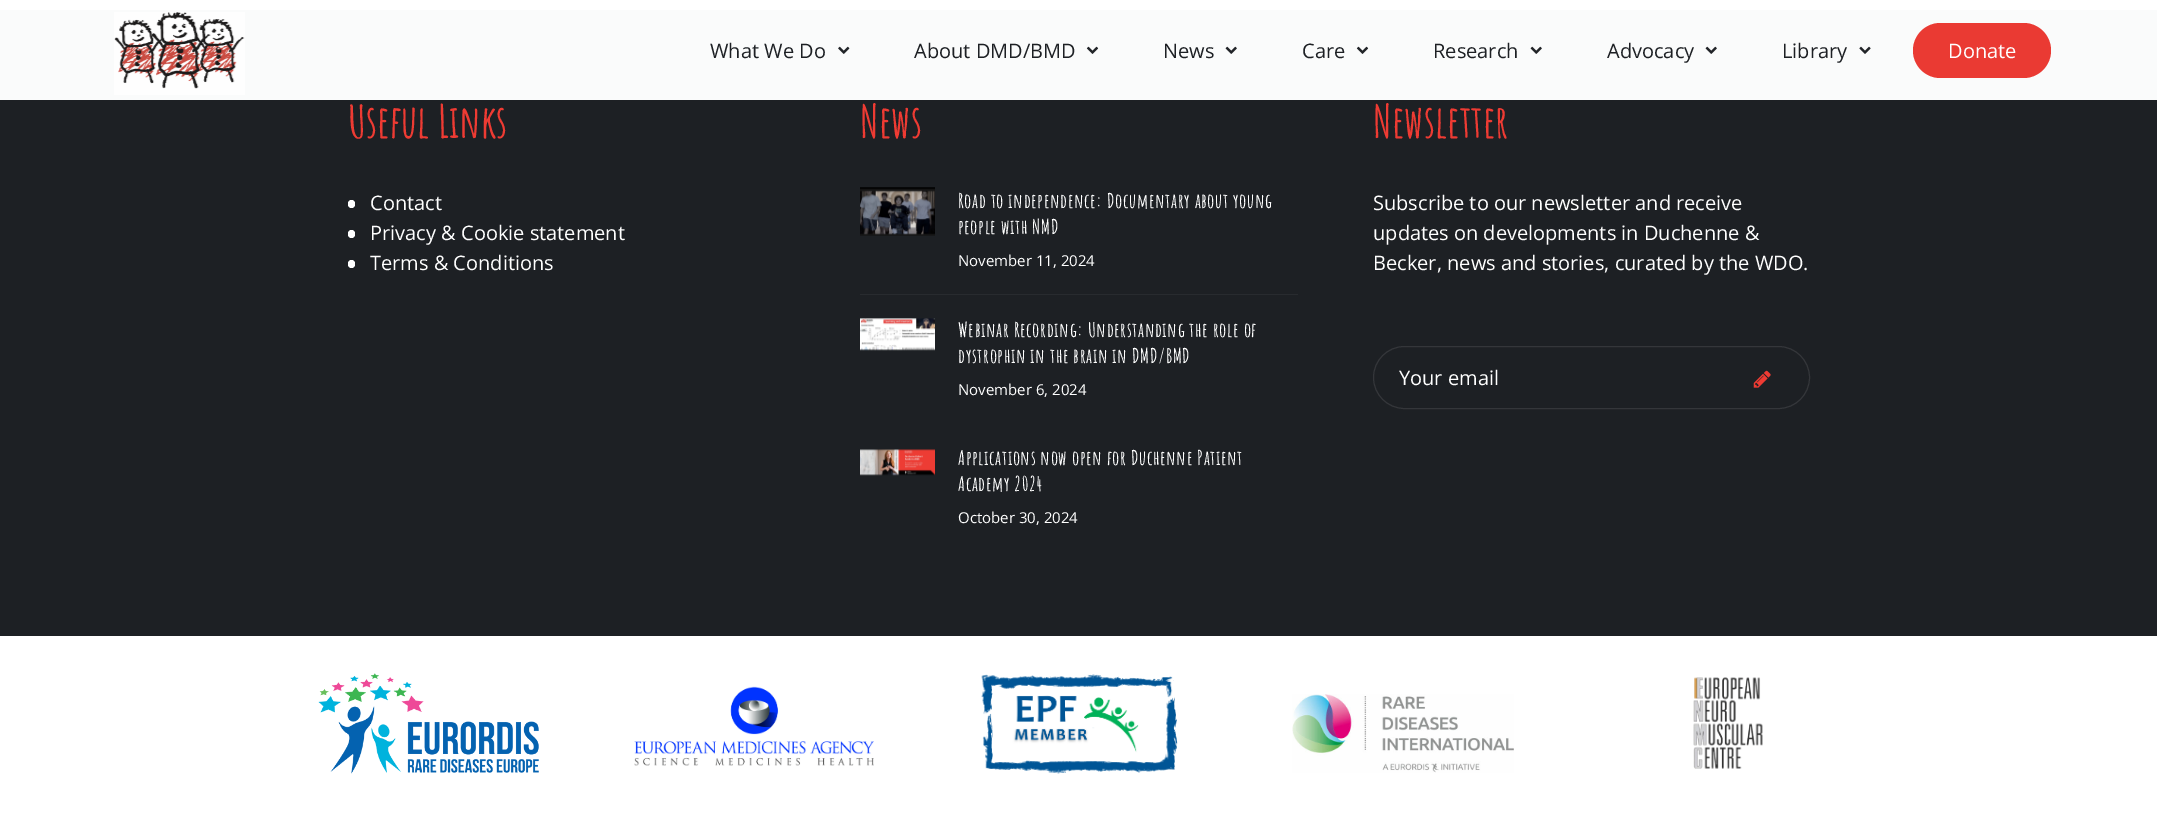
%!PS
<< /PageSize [2157 830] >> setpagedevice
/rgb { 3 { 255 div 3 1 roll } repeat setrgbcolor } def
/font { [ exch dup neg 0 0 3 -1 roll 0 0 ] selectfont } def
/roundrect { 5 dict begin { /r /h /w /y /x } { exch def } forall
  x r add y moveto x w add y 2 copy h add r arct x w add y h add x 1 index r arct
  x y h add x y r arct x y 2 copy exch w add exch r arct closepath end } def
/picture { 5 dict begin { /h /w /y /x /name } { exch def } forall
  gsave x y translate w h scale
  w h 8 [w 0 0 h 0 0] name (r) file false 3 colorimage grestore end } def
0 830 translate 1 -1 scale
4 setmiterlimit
255 255 255 rgb
0 0 2157 830 rectfill
250 251 251 rgb
0 10 2157 90 rectfill
(img/1.rgb) 114 12 131 83 picture
(img/2.rgb) 838 46 12 8 picture
(img/3.rgb) 1086 46 13 8 picture
(img/4.rgb) 1225 46 12 8 picture
(img/3.rgb) 1356 46 13 8 picture
(img/4.rgb) 1530 46 12 8 picture
(img/4.rgb) 1705 46 12 8 picture
(img/5.rgb) 1859 46 12 8 picture
234 58 51 rgb
1913 23 138 55 27.5 roundrect fill
29 32 36 rgb
0 100 2157 536 rectfill
255 255 255 rgb
348 200 7 8 3.5 roundrect fill
348 230 7 8 3.5 roundrect fill
348 260 7 8 3.5 roundrect fill
40 43 47 rgb
860 294 438 1 rectfill
(img/6.rgb) 860 187 75 49 picture
(img/7.rgb) 860 318 75 33 picture
(img/8.rgb) 860 449 75 27 picture
52 54 58 rgb
1373.5 346.5 436 62 31 roundrect stroke
(img/9.rgb) 1753 370 18 18 picture
(img/10.rgb) 318 673 221 101 picture
(img/11.rgb) 634 686 240 80 picture
(img/12.rgb) 981 674 197 100 picture
(img/13.rgb) 1292 694 222 79 picture
(img/14.rgb) 1693 677 70 92 picture
/OpenSans-Regular 20 font
29 32 36 rgb
[
  [(What We Do) 710 58]
  [(About DMD/BMD) 914 58]
  [(News) 1163 58]
  [(Care) 1302 58]
  [(Research) 1433 58]
  [(Advocacy) 1607 58]
  [(Library) 1782 58]
] { aload pop moveto show } forall
255 255 255 rgb
1948 58 moveto (Donate) show
/AmaticSC-Bold 45 font
238 59 51 rgb
348 138 moveto (Useful Links) show
/OpenSans-Regular 20 font
255 255 255 rgb
[
  [(Contact) 370 210]
  [(Privacy & Cookie statement) 370 240]
  [(Terms & Conditions) 370 270]
] { aload pop moveto show } forall
/AmaticSC-Bold 45 font
238 59 51 rgb
860 138 moveto (News) show
/AmaticSC-Bold 20 font
255 255 255 rgb
958 208 moveto 0.6 0 (Road to independence: Documentary about young) ashow
958 234 moveto 0.6 0 (people with NMD) ashow
/OpenSans-Regular 15 font
958 266 moveto (November 11, 2024) show
/AmaticSC-Bold 20 font
958 337 moveto 0.6 0 (Webinar Recording: Understanding the role of) ashow
958 363 moveto 0.6 0 (dystrophin in the brain in DMD/BMD) ashow
/OpenSans-Regular 15 font
958 395 moveto (November 6, 2024) show
/AmaticSC-Bold 20 font
958 465 moveto 0.6 0 (Applications now open for Duchenne Patient) ashow
958 491 moveto 0.6 0 (Academy 2024) ashow
/OpenSans-Regular 15 font
958 523 moveto (October 30, 2024) show
/AmaticSC-Bold 45 font
238 59 51 rgb
1373 138 moveto (Newsletter) show
/OpenSans-Regular 20 font
255 255 255 rgb
[
  [(Subscribe to our newsletter and receive) 1373 210]
  [(updates on developments in Duchenne &) 1373 240]
  [(Becker, news and stories, curated by the WDO.) 1373 270]
  [(Your email) 1399 385]
] { aload pop moveto show } forall
showpage
